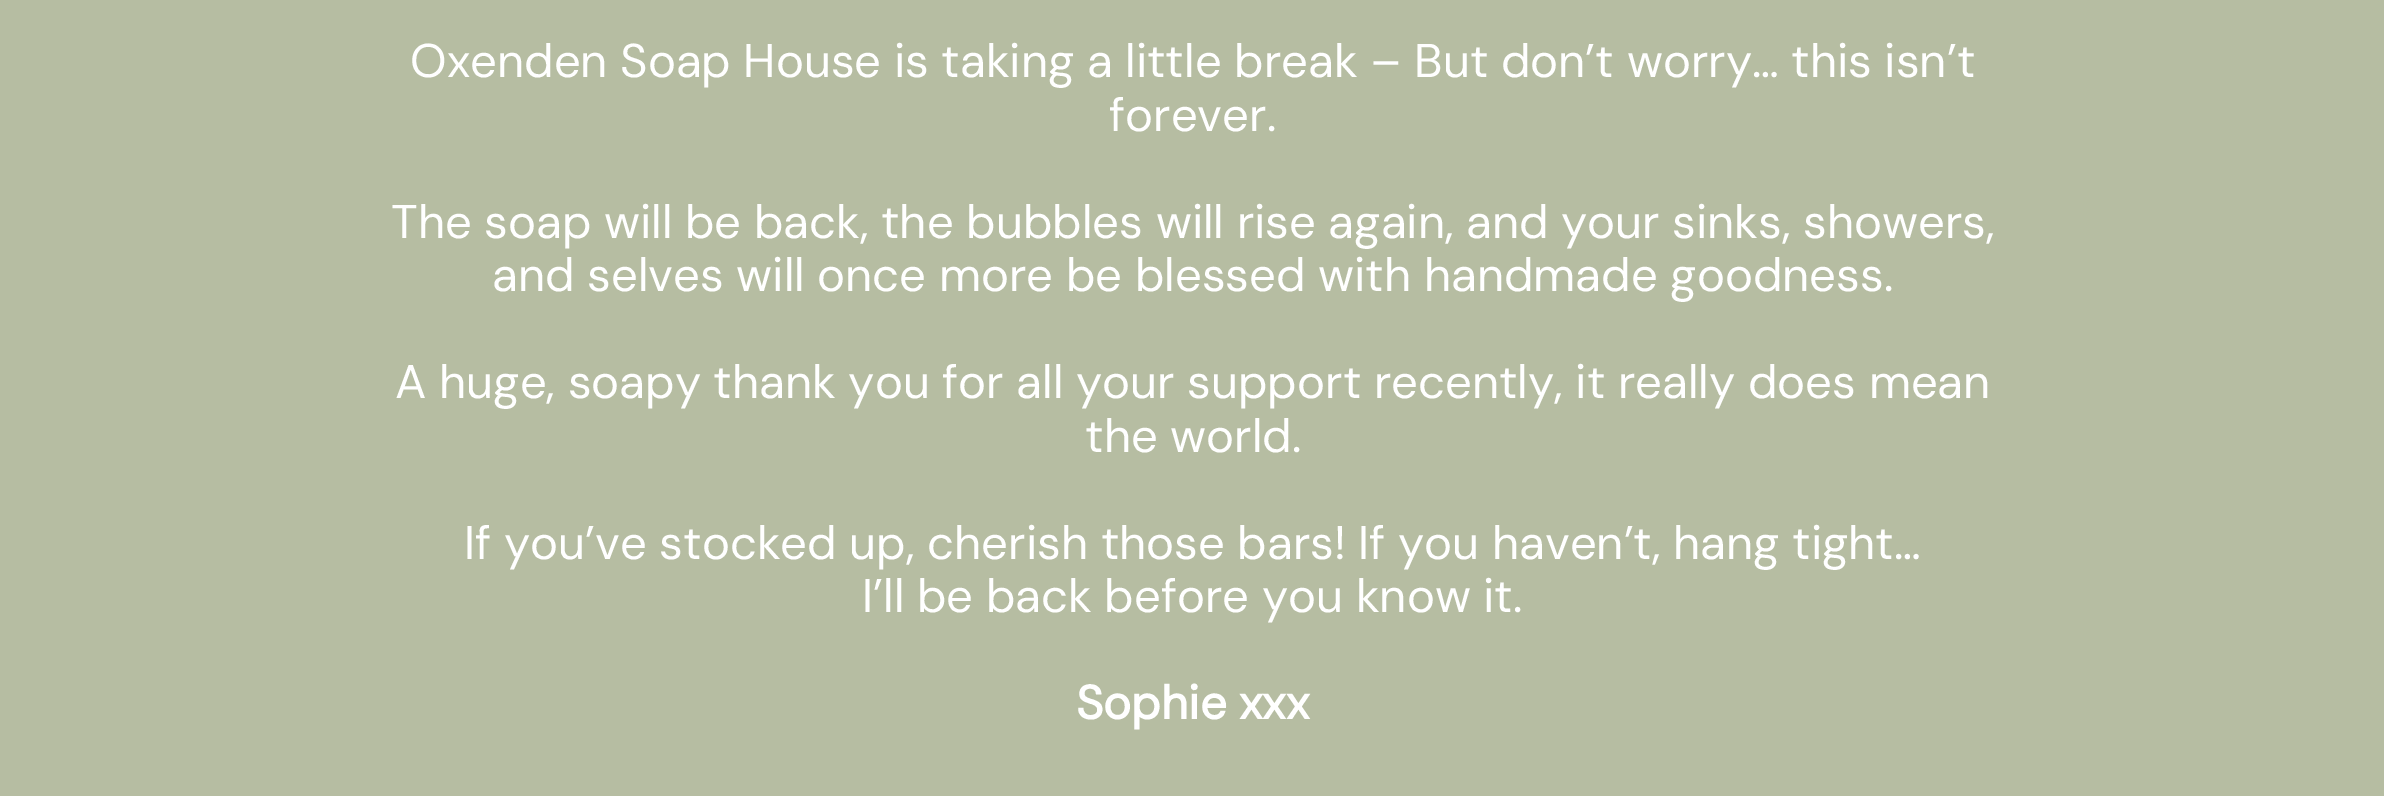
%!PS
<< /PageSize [2384 796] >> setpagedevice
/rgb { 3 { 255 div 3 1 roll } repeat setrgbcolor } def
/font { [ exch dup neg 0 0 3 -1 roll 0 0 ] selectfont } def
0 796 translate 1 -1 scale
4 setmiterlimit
182 189 162 rgb
0 0 2384 796 rectfill
/DMSans-Regular 47.25 font
255 255 255 rgb
[
  [(Oxenden Soap House is taking a little break – But don’t worry… this isn’t) 410 77]
  [(forever.) 1109 131]
  [(The soap will be back, the bubbles will rise again, and your sinks, showers,) 391 238]
  [(and selves will once more be blessed with handmade goodness.) 492 291]
  [(A huge, soapy thank you for all your support recently, it really does mean) 395 398]
  [(the world.) 1085 452]
  [(If you’ve stocked up, cherish those bars! If you haven’t, hang tight…) 464 559]
  [(I’ll be back before you know it.) 862 612]
] { aload pop moveto show } forall
/DMSans-Bold 47.25 font
1076 719 moveto (Sophie xxx) show
showpage
